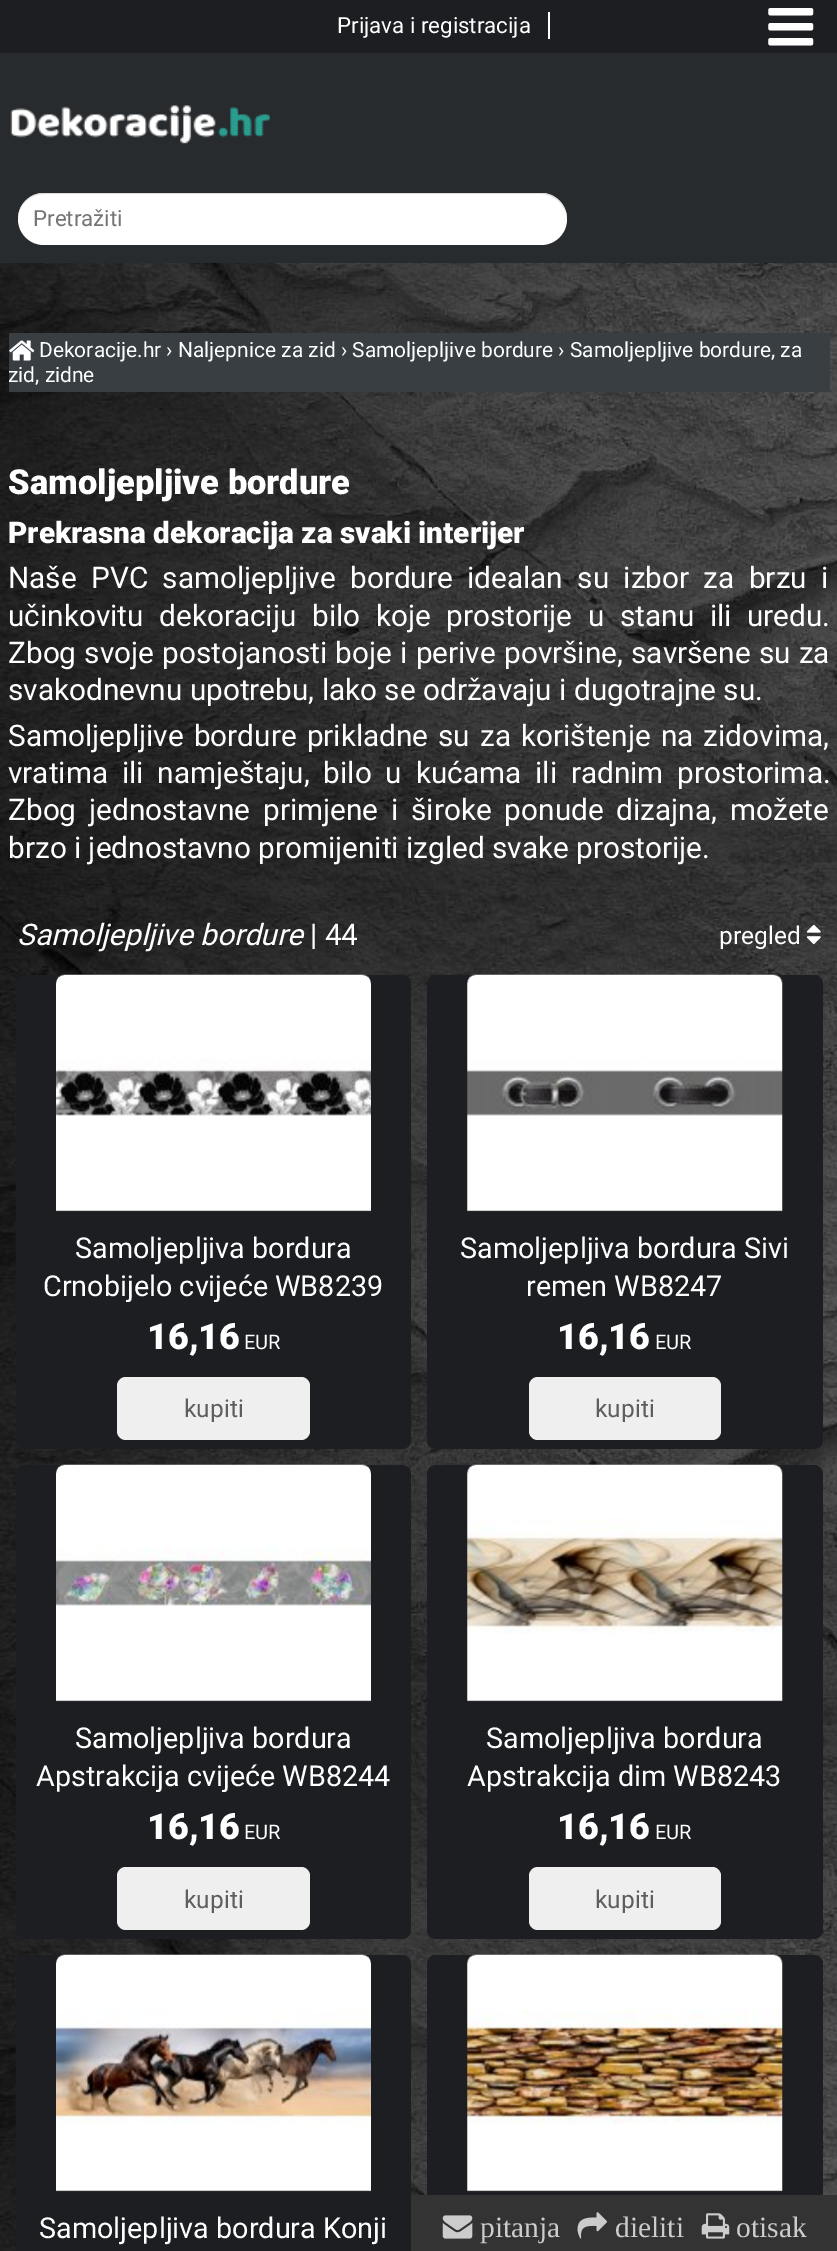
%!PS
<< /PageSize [837 2251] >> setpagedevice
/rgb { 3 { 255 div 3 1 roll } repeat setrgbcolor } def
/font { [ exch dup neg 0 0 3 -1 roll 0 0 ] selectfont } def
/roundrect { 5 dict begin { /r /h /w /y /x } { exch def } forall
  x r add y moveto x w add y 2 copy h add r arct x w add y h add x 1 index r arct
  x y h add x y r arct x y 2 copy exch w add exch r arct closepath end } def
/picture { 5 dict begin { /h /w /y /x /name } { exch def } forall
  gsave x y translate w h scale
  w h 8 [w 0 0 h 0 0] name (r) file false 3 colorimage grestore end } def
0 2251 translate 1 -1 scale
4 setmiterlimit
255 255 255 rgb
0 0 837 2251 rectfill
(img/1.rgb) 0 263 837 1988 picture
[
  [0 0 837 53 28 30 34]
  [0 53 837 210 40 43 45]
  [548 12 2 27 255 255 255]
] { aload pop rgb rectfill } forall
(img/2.rgb) 768 8 46 38 picture
(img/3.rgb) 10 105 260 39 picture
18 193 549 52 26 roundrect fill
221 221 221 rgb
44 194 moveto 541 194 lineto 555 194 567 206 567 220 curveto 567 205 555 193 541 193 curveto 44 193 lineto 30 193 18 205 18 219 curveto 18 206 29 194 44 194 curveto closepath fill
57 62 66 rgb
9 333 821 59 rectfill
(img/4.rgb) 9 340 26 21 picture
(img/5.rgb) 806 924 15 21 picture
28 30 34 rgb
16 975 395 474 9 roundrect fill
(img/6.rgb) 56 974 315 238 picture
239 239 239 rgb
117 1377 193 63 9 roundrect fill
28 30 34 rgb
427 975 396 474 9 roundrect fill
(img/7.rgb) 467 974 316 238 picture
239 239 239 rgb
529 1377 192 63 9 roundrect fill
28 30 34 rgb
16 1465 395 474 9 roundrect fill
(img/8.rgb) 56 1464 315 238 picture
239 239 239 rgb
117 1867 193 63 9 roundrect fill
28 30 34 rgb
427 1465 396 474 9 roundrect fill
(img/9.rgb) 467 1464 316 238 picture
239 239 239 rgb
529 1867 192 63 9 roundrect fill
28 30 34 rgb
16 1955 395 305 9 roundrect fill
(img/10.rgb) 56 1954 315 238 picture
427 1955 396 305 9 roundrect fill
(img/11.rgb) 467 1954 316 238 picture
51 51 51 rgb
411 2195 426 56 rectfill
(img/12.rgb) 442 2215 31 24 picture
(img/13.rgb) 577 2212 30 27 picture
(img/14.rgb) 701 2213 29 26 picture
/Roboto-Regular 22.25 font
255 255 255 rgb
337 33 moveto (Prijava i registracija) show
117 117 117 rgb
33 226 moveto (Pretražiti) show
/Roboto-Regular 20.95 font
255 255 255 rgb
39 357 moveto (Dekoracije.hr › Naljepnice za zid › Samoljepljive bordure › Samoljepljive bordure, za) show
8 382 moveto (zid, zidne) show
/Roboto-Black 34.5 font
8 494 moveto (Samoljepljive bordure) show
/Roboto-Black 29.75 font
8 543 moveto (Prekrasna dekoracija za svaki interijer) show
/Roboto-Regular 29.75 font
8 588 moveto 7 0 32 (Naše PVC samoljepljive bordure idealan su izbor za brzu i) widthshow
8 626 moveto 8.25 0 32 (učinkovitu dekoraciju bilo koje prostorije u stanu ili uredu.) widthshow
8 663 moveto 0.9 0 32 (Zbog svoje postojanosti boje i perive površine, savršene su za) widthshow
8 700 moveto (svakodnevnu upotrebu, lako se održavaju i dugotrajne su.) show
8 746 moveto 2.75 0 32 (Samoljepljive bordure prikladne su za korištenje na zidovima,) widthshow
8 783 moveto 6.5 0 32 (vratima ili namještaju, bilo u kućama ili radnim prostorima.) widthshow
8 820 moveto 5.5 0 32 (Zbog jednostavne primjene i široke ponude dizajna, možete) widthshow
8 858 moveto (brzo i jednostavno promijeniti izgled svake prostorije.) show
/Roboto-Italic 29.75 font
17 945 moveto (Samoljepljive bordure) show
/Roboto-Regular 29.75 font
310 945 moveto (| 44) show
/Roboto-Regular 24.5 font
719 944 moveto (pregled) show
/Roboto-Regular 28.75 font
75 1258 moveto (Samoljepljiva bordura) show
gsave
16 1222 395 80 rectclip
43 1296 moveto (Crnobijelo cvijeće WB8239) show
grestore
/Roboto-Black 36 font
147 1349 moveto (16,16) show
/Roboto-Regular 20 font
244 1349 moveto (EUR) show
/Roboto-Regular 24.5 font
94 94 94 rgb
184 1417 moveto (kupiti) show
/Roboto-Regular 28.75 font
255 255 255 rgb
460 1258 moveto (Samoljepljiva bordura Sivi) show
526 1296 moveto (remen WB8247) show
/Roboto-Black 36 font
557 1349 moveto (16,16) show
/Roboto-Regular 20 font
655 1349 moveto (EUR) show
/Roboto-Regular 24.5 font
94 94 94 rgb
595 1417 moveto (kupiti) show
/Roboto-Regular 28.75 font
255 255 255 rgb
75 1748 moveto (Samoljepljiva bordura) show
gsave
16 1712 395 80 rectclip
36 1786 moveto (Apstrakcija cvijeće WB8244) show
grestore
/Roboto-Black 36 font
147 1839 moveto (16,16) show
/Roboto-Regular 20 font
244 1839 moveto (EUR) show
/Roboto-Regular 24.5 font
94 94 94 rgb
184 1908 moveto (kupiti) show
/Roboto-Regular 28.75 font
255 255 255 rgb
486 1748 moveto (Samoljepljiva bordura) show
467 1786 moveto (Apstrakcija dim WB8243) show
/Roboto-Black 36 font
557 1839 moveto (16,16) show
/Roboto-Regular 20 font
655 1839 moveto (EUR) show
/Roboto-Regular 24.5 font
94 94 94 rgb
595 1908 moveto (kupiti) show
/Roboto-Regular 28.75 font
255 255 255 rgb
39 2238 moveto (Samoljepljiva bordura Konji) show
/LiberationSerif-Regular 29.5 font
204 204 204 rgb
[
  [(pitanja) 480 2237]
  [(dieliti) 615 2237]
  [(otisak) 736 2237]
] { aload pop moveto show } forall
showpage
